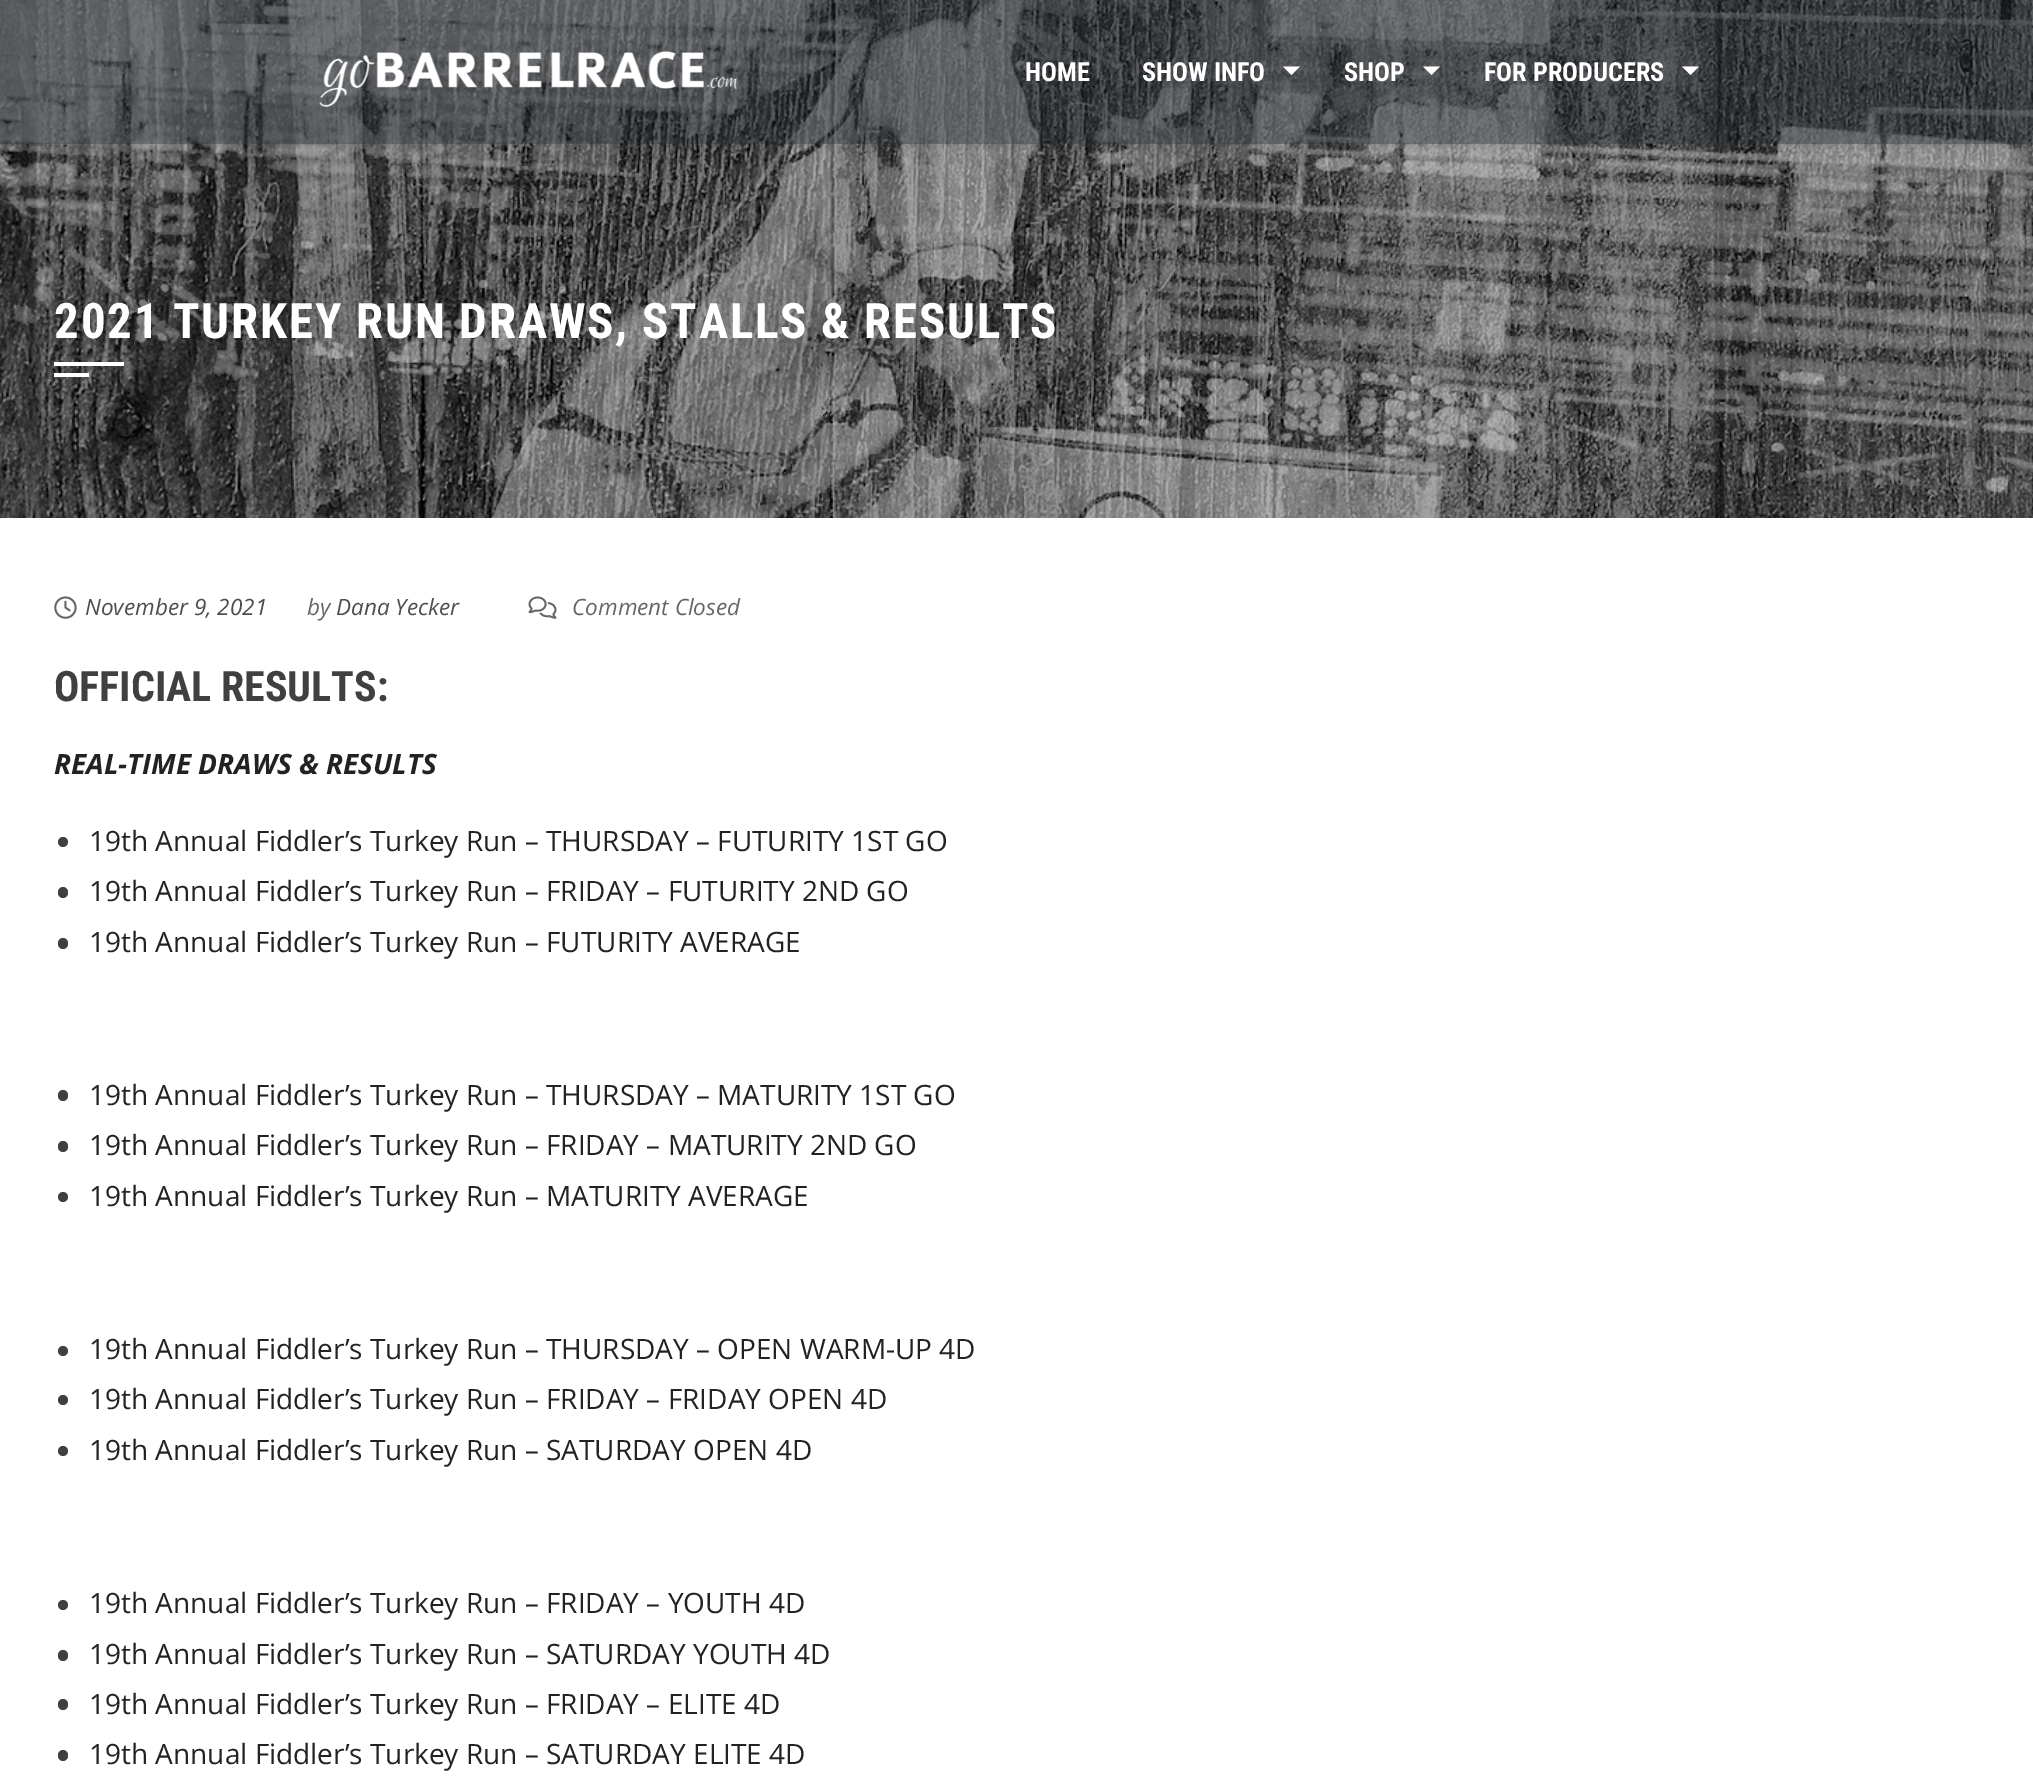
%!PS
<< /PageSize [2033 1780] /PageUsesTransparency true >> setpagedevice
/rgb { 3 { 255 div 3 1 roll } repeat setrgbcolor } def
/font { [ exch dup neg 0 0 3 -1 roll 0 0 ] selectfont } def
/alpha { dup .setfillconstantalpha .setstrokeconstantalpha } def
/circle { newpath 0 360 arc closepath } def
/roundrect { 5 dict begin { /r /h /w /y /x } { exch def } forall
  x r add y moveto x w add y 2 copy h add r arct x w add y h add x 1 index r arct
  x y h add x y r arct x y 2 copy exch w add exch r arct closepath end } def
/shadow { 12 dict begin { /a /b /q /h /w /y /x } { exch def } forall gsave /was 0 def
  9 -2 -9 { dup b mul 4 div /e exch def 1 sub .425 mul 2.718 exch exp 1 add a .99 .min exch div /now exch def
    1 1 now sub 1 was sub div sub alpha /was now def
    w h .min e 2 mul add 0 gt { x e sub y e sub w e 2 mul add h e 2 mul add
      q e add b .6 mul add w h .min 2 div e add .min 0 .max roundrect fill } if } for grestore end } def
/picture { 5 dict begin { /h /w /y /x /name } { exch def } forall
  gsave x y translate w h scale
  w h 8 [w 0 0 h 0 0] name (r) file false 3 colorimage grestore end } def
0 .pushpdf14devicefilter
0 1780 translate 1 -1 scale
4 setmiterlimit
255 255 255 rgb
0 0 2033 1780 rectfill
(img/2.rgb) 0 0 2033 518 picture
gsave
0 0 moveto 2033 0 lineto 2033 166 lineto 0 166 lineto closepath 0 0 moveto 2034 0 lineto 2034 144 lineto 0 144 lineto closepath eoclip newpath
0 0 0 rgb
0 0 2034 144 0 7 0.2 shadow
grestore
0.4 alpha
30 36 42 rgb
0 0 2033 144 rectfill
1 alpha
(img/1.rgb) 319 51 418 56 picture
255 255 255 rgb
1283 66.5 moveto 1300 66.5 lineto 1291.5 75 lineto closepath fill
1423 66.5 moveto 1440 66.5 lineto 1431.5 75 lineto closepath fill
1682 66.5 moveto 1699 66.5 lineto 1690.5 75 lineto closepath fill
54 362 70 4 rectfill
54 373 35 4 rectfill
(img/3.rgb) 54 596 23 23 picture
(img/4.rgb) 528 596 29 23 picture
64 64 64 rgb
63 842 5 circle fill
58 887 10 11 5 roundrect fill
58 938 10 11 5 roundrect fill
58 1090 10 11 5 roundrect fill
58 1141 10 11 5 roundrect fill
63 1197 5 circle fill
63 1351 5 circle fill
63 1400 5 circle fill
63 1451 5 circle fill
63 1605 5 circle fill
58 1650 10 11 5 roundrect fill
58 1699 10 11 5 roundrect fill
58 1750 10 11 5 roundrect fill
/RobotoCondensed-Bold 26.25 font
255 255 255 rgb
[
  [(HOME) 1025 81]
  [(SHOW INFO) 1142 81]
  [(SHOP) 1344 81]
  [(FOR PRODUCERS) 1484 81]
] { aload pop moveto show } forall
/RobotoCondensed-Bold 49 font
54 338 moveto 1.75 0 (2021 TURKEY RUN DRAWS, STALLS & RESULTS) ashow
/OpenSans-Italic 22.5 font
78 78 78 rgb
85 615 moveto (November 9, 2021) show
102 102 102 rgb
307 615 moveto (by) show
78 78 78 rgb
336 615 moveto (Dana Yecker) show
102 102 102 rgb
572 615 moveto (Comment Closed) show
/RobotoCondensed-Bold 42 font
64 64 64 rgb
54 701 moveto (OFFICIAL RESULTS:) show
/OpenSans-BoldItalic 28 font
34 34 34 rgb
54 774 moveto (REAL-TIME DRAWS & RESULTS) show
/OpenSans-Regular 28 font
[
  [(19th Annual Fiddler’s Turkey Run – THURSDAY – FUTURITY 1ST GO) 89 851]
  [(19th Annual Fiddler’s Turkey Run – FRIDAY – FUTURITY 2ND GO) 89 901]
  [(19th Annual Fiddler’s Turkey Run – FUTURITY AVERAGE) 89 952]
  [(19th Annual Fiddler’s Turkey Run – THURSDAY – MATURITY 1ST GO) 89 1105]
  [(19th Annual Fiddler’s Turkey Run – FRIDAY – MATURITY 2ND GO) 89 1155]
  [(19th Annual Fiddler’s Turkey Run – MATURITY AVERAGE) 89 1206]
  [(19th Annual Fiddler’s Turkey Run – THURSDAY – OPEN WARM-UP 4D) 89 1359]
  [(19th Annual Fiddler’s Turkey Run – FRIDAY – FRIDAY OPEN 4D) 89 1409]
  [(19th Annual Fiddler’s Turkey Run – SATURDAY OPEN 4D) 89 1460]
  [(19th Annual Fiddler’s Turkey Run – FRIDAY – YOUTH 4D) 89 1613]
  [(19th Annual Fiddler’s Turkey Run – SATURDAY YOUTH 4D) 89 1664]
  [(19th Annual Fiddler’s Turkey Run – FRIDAY – ELITE 4D) 89 1714]
  [(19th Annual Fiddler’s Turkey Run – SATURDAY ELITE 4D) 89 1764]
] { aload pop moveto show } forall
.poppdf14devicefilter showpage
